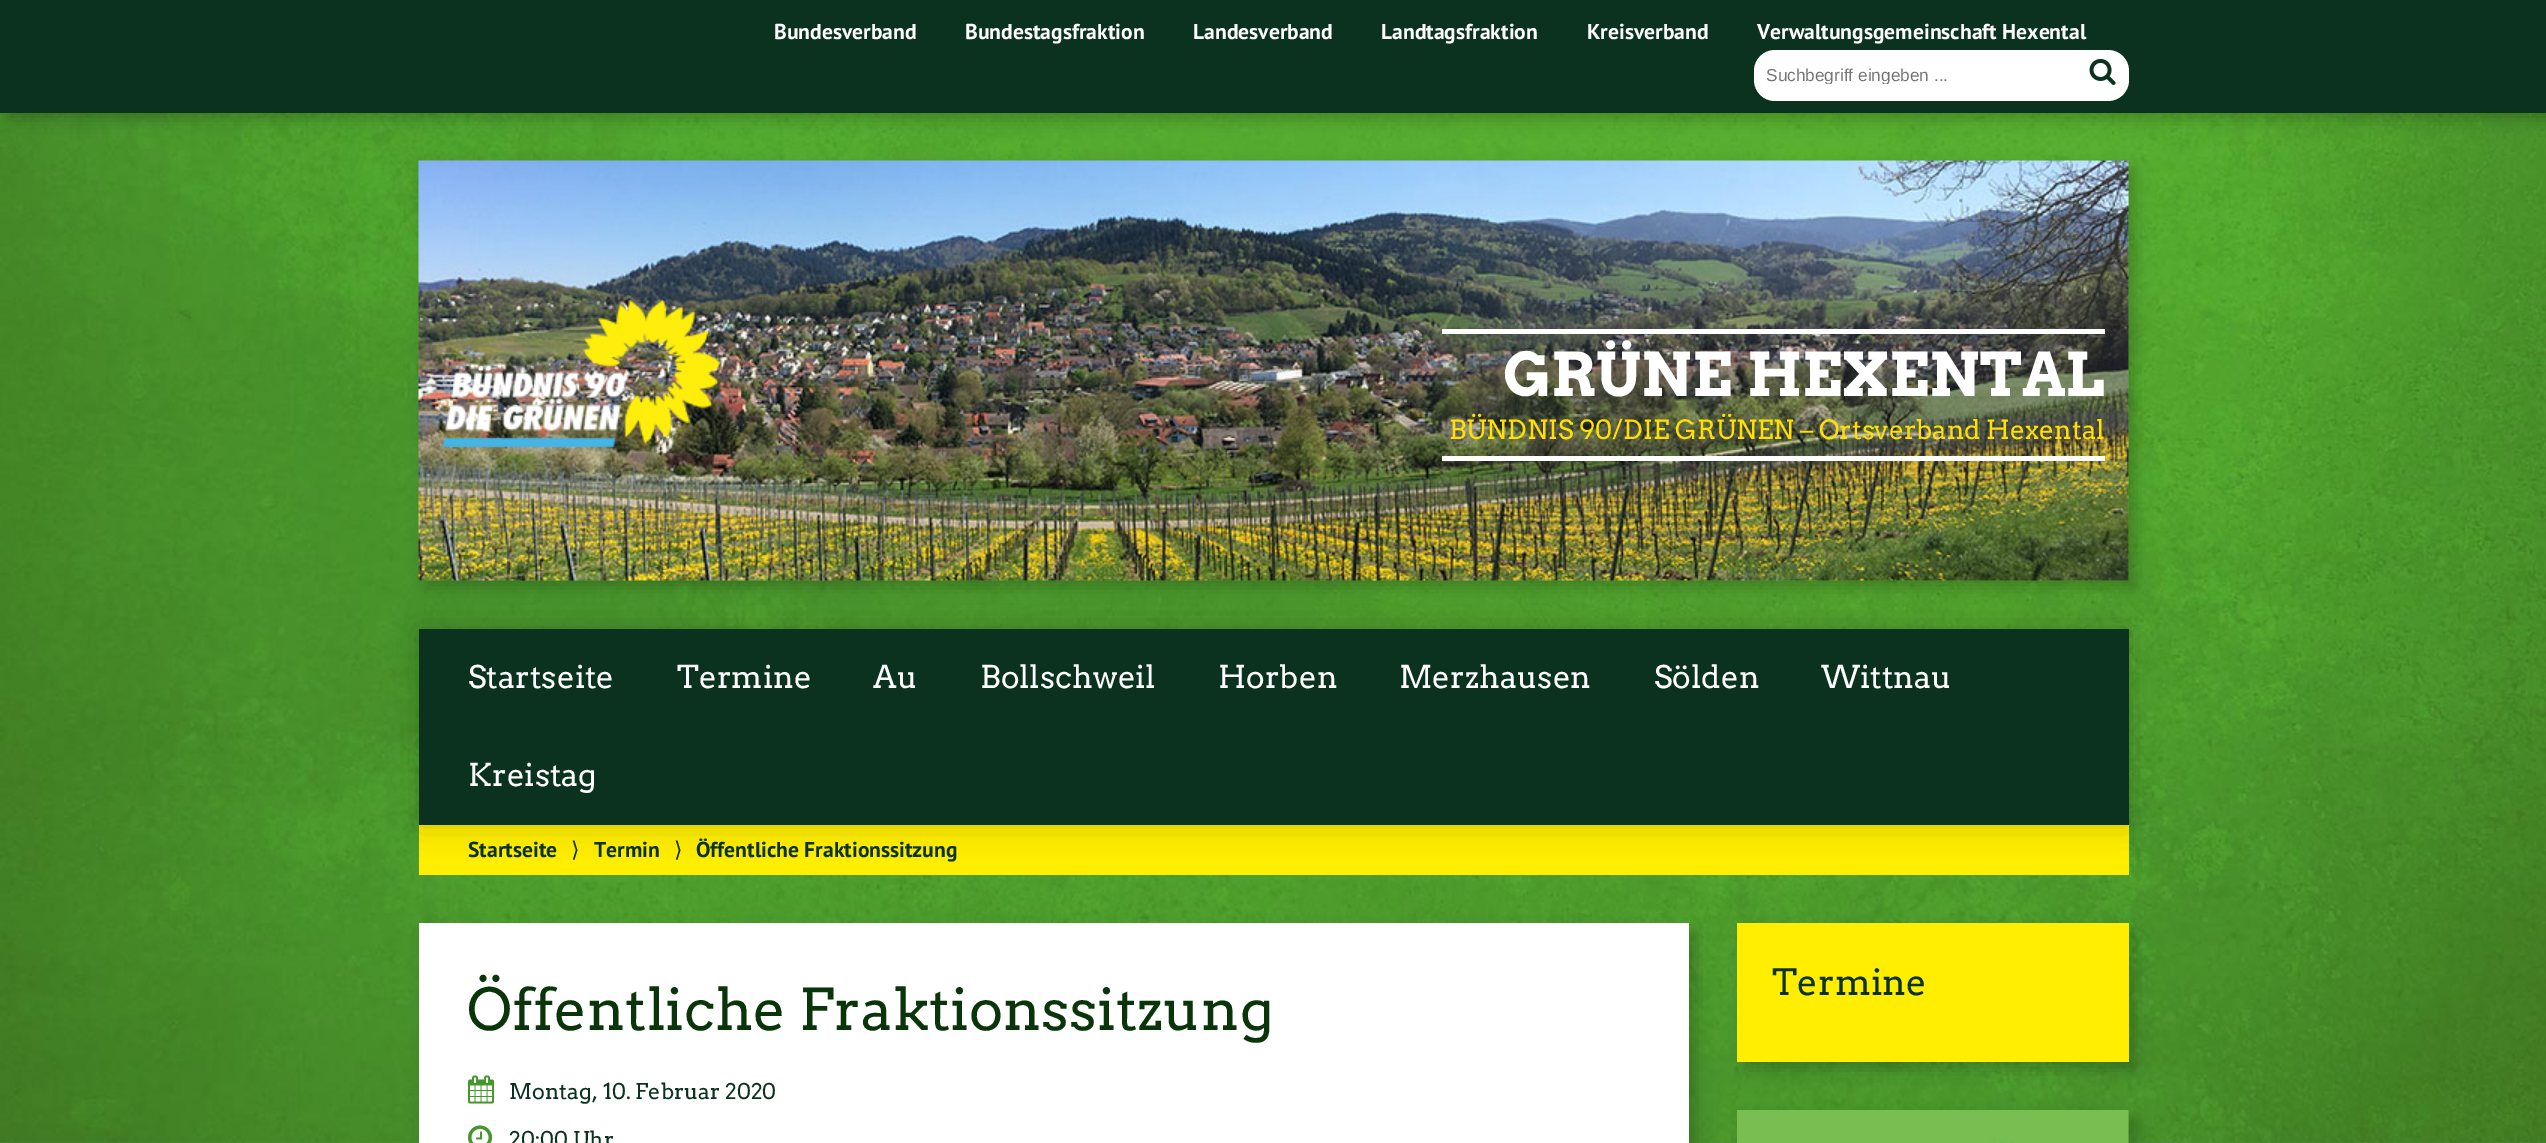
%!PS
<< /PageSize [2546 1143] /PageUsesTransparency true >> setpagedevice
/rgb { 3 { 255 div 3 1 roll } repeat setrgbcolor } def
/font { [ exch dup neg 0 0 3 -1 roll 0 0 ] selectfont } def
/alpha { dup .setfillconstantalpha .setstrokeconstantalpha } def
/roundrect { 5 dict begin { /r /h /w /y /x } { exch def } forall
  x r add y moveto x w add y 2 copy h add r arct x w add y h add x 1 index r arct
  x y h add x y r arct x y 2 copy exch w add exch r arct closepath end } def
/shadow { 12 dict begin { /a /b /q /h /w /y /x } { exch def } forall gsave /was 0 def
  9 -2 -9 { dup b mul 4 div /e exch def 1 sub .425 mul 2.718 exch exp 1 add a .99 .min exch div /now exch def
    1 1 now sub 1 was sub div sub alpha /was now def
    w h .min e 2 mul add 0 gt { x e sub y e sub w e 2 mul add h e 2 mul add
      q e add b .6 mul add w h .min 2 div e add .min 0 .max roundrect fill } if } for grestore end } def
/picture { 5 dict begin { /h /w /y /x /name } { exch def } forall
  gsave x y translate w h scale
  w h 8 [w 0 0 h 0 0] name (r) file false 3 colorimage grestore end } def
0 .pushpdf14devicefilter
0 1143 translate 1 -1 scale
4 setmiterlimit
255 255 255 rgb
0 0 2546 1143 rectfill
(img/1.rgb) 0 113 2546 1030 picture
0 0 0 rgb
8 8 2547 112 0 7.5 0.2 shadow
10 50 30 rgb
0 0 2546 113 rectfill
255 255 255 rgb
1754 50 375 51 21 roundrect fill
(img/2.rgb) 2089 58 27 27 picture
0 0 0 rgb
426 168 1710 420 0 7.5 0.2 shadow
(img/3.rgb) 418 160 1711 421 picture
(img/4.rgb) 442 299 278 149 picture
[
  [1442 329 663 5 255 255 255]
  [1442 456 663 5 255 255 255]
  [419 825 1710 50 255 238 0]
] { aload pop rgb rectfill } forall
0 0 0 rgb
419 629 1710 196 0 15 0.2 shadow
10 50 30 rgb
419 629 1710 196 rectfill
0 0 0 rgb
426 930 1271 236 0 7.5 0.2 shadow
255 255 255 rgb
419 923 1270 220 rectfill
(img/5.rgb) 468 1075 27 29 picture
(img/6.rgb) 468 1125 25 18 picture
0 0 0 rgb
1745 930 391 140 0 7.5 0.2 shadow
255 238 0 rgb
1737 923 392 139 rectfill
0 0 0 rgb
1745 1118 391 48 0 7.5 0.2 shadow
(img/7.rgb) 1737 1110 392 33 picture
/PTSans-Bold 21.6 font
255 255 255 rgb
[
  [(Bundesverband) 774 39]
  [(Bundestagsfraktion) 965 39]
  [(Landesverband) 1193 39]
  [(Landtagsfraktion) 1381 39]
  [(Kreisverband) 1587 39]
  [(Verwaltungsgemeinschaft Hexental) 1757 39]
] { aload pop moveto show } forall
gsave
1766 66 300 18 rectclip
/LiberationSans-Regular 17.25 font
117 117 117 rgb
1766 81 moveto (Suchbegriff eingeben ...) show
grestore
/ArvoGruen-Regular 60 font
1503 396 moveto (GRÜNE HEXENTAL) show
/Arvo-Regular 26.4 font
255 224 0 rgb
1449 439 moveto (BÜNDNIS 90/DIE GRÜNEN – Ortsverband Hexental) show
/Arvo-Regular 31.25 font
255 255 255 rgb
[
  [(Startseite) 468 688]
  [(Termine) 677 688]
  [(Au) 873 688]
  [(Bollschweil) 980 688]
  [(Horben) 1218 688]
  [(Merzhausen) 1399 688]
  [(Sölden) 1654 688]
  [(Wittnau) 1821 688]
  [(Kreistag) 468 786]
] { aload pop moveto show } forall
/PTSans-Bold 21.6 font
10 50 30 rgb
468 857 moveto (Startseite) show
/DejaVuSans-Regular 21.6 font
571 857 moveto (⟩) show
/PTSans-Bold 21.6 font
594 857 moveto (Termin) show
/DejaVuSans-Regular 21.6 font
674 857 moveto (⟩) show
/PTSans-Bold 21.6 font
696 857 moveto (Öffentliche Fraktionssitzung) show
/Arvo-Regular 57.6 font
10 53 10 rgb
467 1030 moveto (Öffentliche Fraktionssitzung) show
/Arvo-Regular 21.6 font
10 50 30 rgb
509 1099 moveto (Montag, 10. Februar 2020) show
509 1147 moveto (20:00 Uhr) show
/Arvo-Regular 36 font
1772 995 moveto (Termine) show
.poppdf14devicefilter showpage
